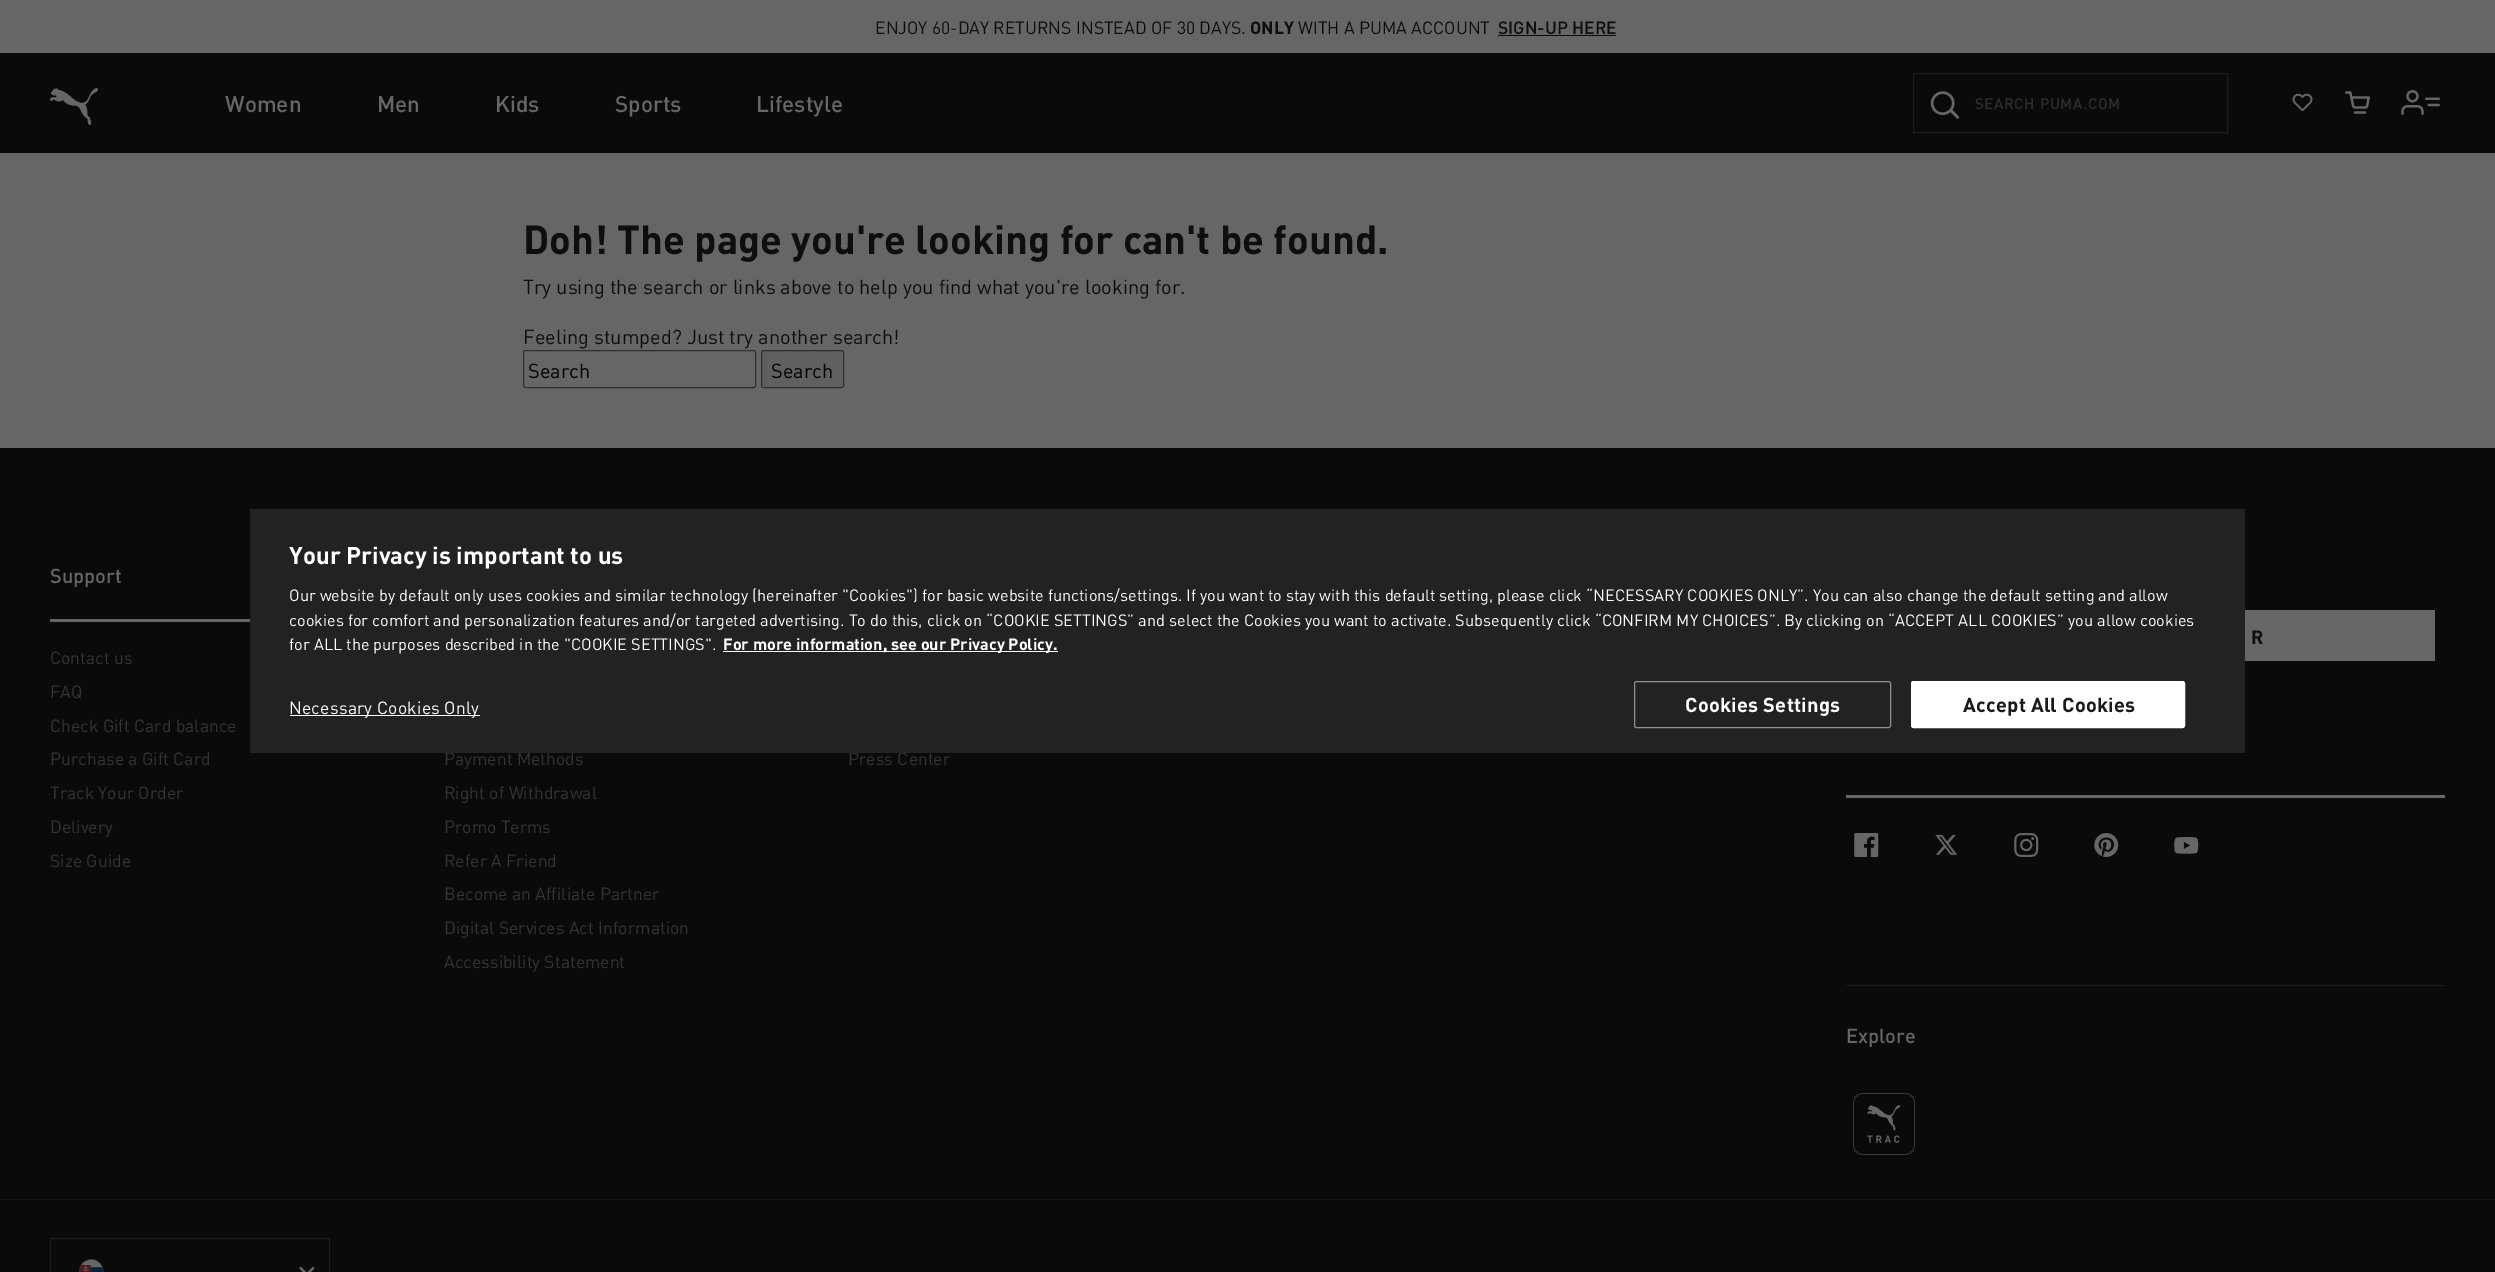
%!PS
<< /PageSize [2495 1272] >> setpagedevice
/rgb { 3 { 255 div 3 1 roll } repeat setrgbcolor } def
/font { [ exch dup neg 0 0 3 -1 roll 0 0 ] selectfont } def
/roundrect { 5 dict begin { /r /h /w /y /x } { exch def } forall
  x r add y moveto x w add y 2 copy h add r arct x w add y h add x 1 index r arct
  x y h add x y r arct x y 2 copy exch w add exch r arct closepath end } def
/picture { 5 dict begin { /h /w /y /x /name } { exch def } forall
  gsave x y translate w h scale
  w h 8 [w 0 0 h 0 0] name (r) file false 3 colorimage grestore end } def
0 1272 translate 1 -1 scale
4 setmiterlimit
102 102 102 rgb
0 0 2495 1272 rectfill
10 10 10 rgb
1498 35 118 1 rectfill
0 53 2495 100 rectfill
(img/1.rgb) 50 88 48 37 picture
28 28 28 rgb
1913.5 73.5 314 59 rectstroke
(img/2.rgb) 1930 91 30 28 picture
(img/3.rgb) 2292 93 21 19 picture
(img/4.rgb) 2345 91 25 23 picture
(img/5.rgb) 2401 90 39 25 picture
47 47 47 rgb
523.5 350.5 232 37 2 roundrect stroke
96 96 96 rgb
761.5 350.5 82 37 2 roundrect gsave fill grestore
47 47 47 rgb
stroke
[
  [0 448 2495 751 10 10 10]
  [50 619 200 3 102 102 102]
  [2245 610 190 51 102 102 102]
  [1846 795 599 3 102 102 102]
] { aload pop rgb rectfill } forall
(img/6.rgb) 1854 833 25 24 picture
(img/7.rgb) 1935 834 23 21 picture
(img/8.rgb) 2014 833 25 24 picture
(img/9.rgb) 2094 833 25 24 picture
(img/10.rgb) 2174 837 25 17 picture
27 27 27 rgb
1846 985 599 1 rectfill
(img/11.rgb) 1853 1093 62 62 picture
10 10 10 rgb
0 1200 2495 72 rectfill
18 18 18 rgb
0 1199 2495 1 rectfill
28 28 28 rgb
50.5 1238.5 279 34 rectstroke
(img/12.rgb) 79 1259 25 13 picture
(img/13.rgb) 299 1266 16 6 picture
/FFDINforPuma-Regular 17.5 font
14 14 14 rgb
875 34 moveto (ENJOY 60-DAY RETURNS INSTEAD OF 30 DAYS.) show
/FFDINforPuma-Bold 17.5 font
1250 34 moveto (ONLY) show
/FFDINforPuma-Regular 17.5 font
1298 34 moveto (WITH A PUMA ACCOUNT) show
/FFDINforPuma-Medium 17.5 font
1498 34 moveto (SIGN-UP HERE) show
/FFDINforPuma-Medium 22.5 font
102 102 102 rgb
[
  [(Women) 225 112]
  [(Men) 377 112]
  [(Kids) 495 112]
  [(Sports) 615 112]
  [(Lifestyle) 756 112]
] { aload pop moveto show } forall
/FFDINforPuma-Medium 15 font
46 46 46 rgb
1975 109 moveto 0.6 0 (SEARCH PUMA.COM) ashow
/FFDINforPuma-Bold 40 font
14 14 14 rgb
523 254 moveto (Doh! The page you're looking for can't be found.) show
/FFDINforPuma-Regular 20 font
523 294 moveto (Try using the search or links above to help you find what you're looking for.) show
523 344 moveto (Feeling stumped? Just try another search!) show
0 0 0 rgb
528 378 moveto (Search) show
771 378 moveto (Search) show
/FFDINforPuma-Medium 20 font
102 102 102 rgb
50 583 moveto (Support) show
/FFDINforPuma-Regular 17.5 font
52 52 52 rgb
[
  [(Contact us) 50 664]
  [(FAQ) 50 698]
  [(Check Gift Card balance) 50 732]
  [(Purchase a Gift Card) 50 765]
  [(Track Your Order) 50 799]
  [(Delivery) 50 833]
  [(Size Guide) 50 867]
  [(Payment Methods) 444 765]
  [(Right of Withdrawal) 444 799]
  [(Promo Terms) 444 833]
  [(Refer A Friend) 444 867]
  [(Become an Affiliate Partner) 444 900]
  [(Digital Services Act Information) 444 934]
  [(Accessibility Statement) 444 968]
  [(Press Center) 848 765]
] { aload pop moveto show } forall
34 34 34 rgb
250 509 1995 244 rectfill
255 255 255 rgb
723 651 335 1 rectfill
/FFDINforPuma-Bold 16.26 font
723 650 moveto (For more information, see our Privacy Policy.) show
/FFDINforPuma-Regular 16.26 font
[
  [(for ALL the purposes described in the "COOKIE SETTINGS".) 289 650]
  [(cookies for comfort and personalization features and/or targeted advertising. To do this, click on “COOKIE SETTINGS” and select the Cookies you want to activate. Subsequently click “CONFIRM MY CHOICES”. By clicking on “ACCEPT ALL COOKIES” you allow cookies) 289 626]
  [(Our website by default only uses cookies and similar technology \(hereinafter "Cookies"\) for basic website functions/settings. If you want to stay with this default setting, please click “NECESSARY COOKIES ONLY”. You can also change the default setting and allow) 289 601]
] { aload pop moveto show } forall
/FFDINforPuma-Bold 24 font
289 564 moveto (Your Privacy is important to us) show
1911.5 681.5 273 46 2 roundrect gsave fill grestore
stroke
/FFDINforPuma-Bold 20 font
25 25 25 rgb
1963 712 moveto 0.25 0 (Accept All Cookies) ashow
255 255 255 rgb
290 715 190 1 rectfill
/FFDINforPuma-Regular 17.5 font
289 714 moveto 0.2 0 (Necessary Cookies Only) ashow
140 145 152 rgb
1634.5 681.5 256 46 2 roundrect stroke
/FFDINforPuma-Bold 20 font
255 255 255 rgb
1685 712 moveto 0.25 0 (Cookies Settings) ashow
/FFDINforPuma-Bold 19 font
14 14 14 rgb
2251 644 moveto (R) show
/FFDINforPuma-Medium 20 font
102 102 102 rgb
1846 1043 moveto (Explore) show
showpage
